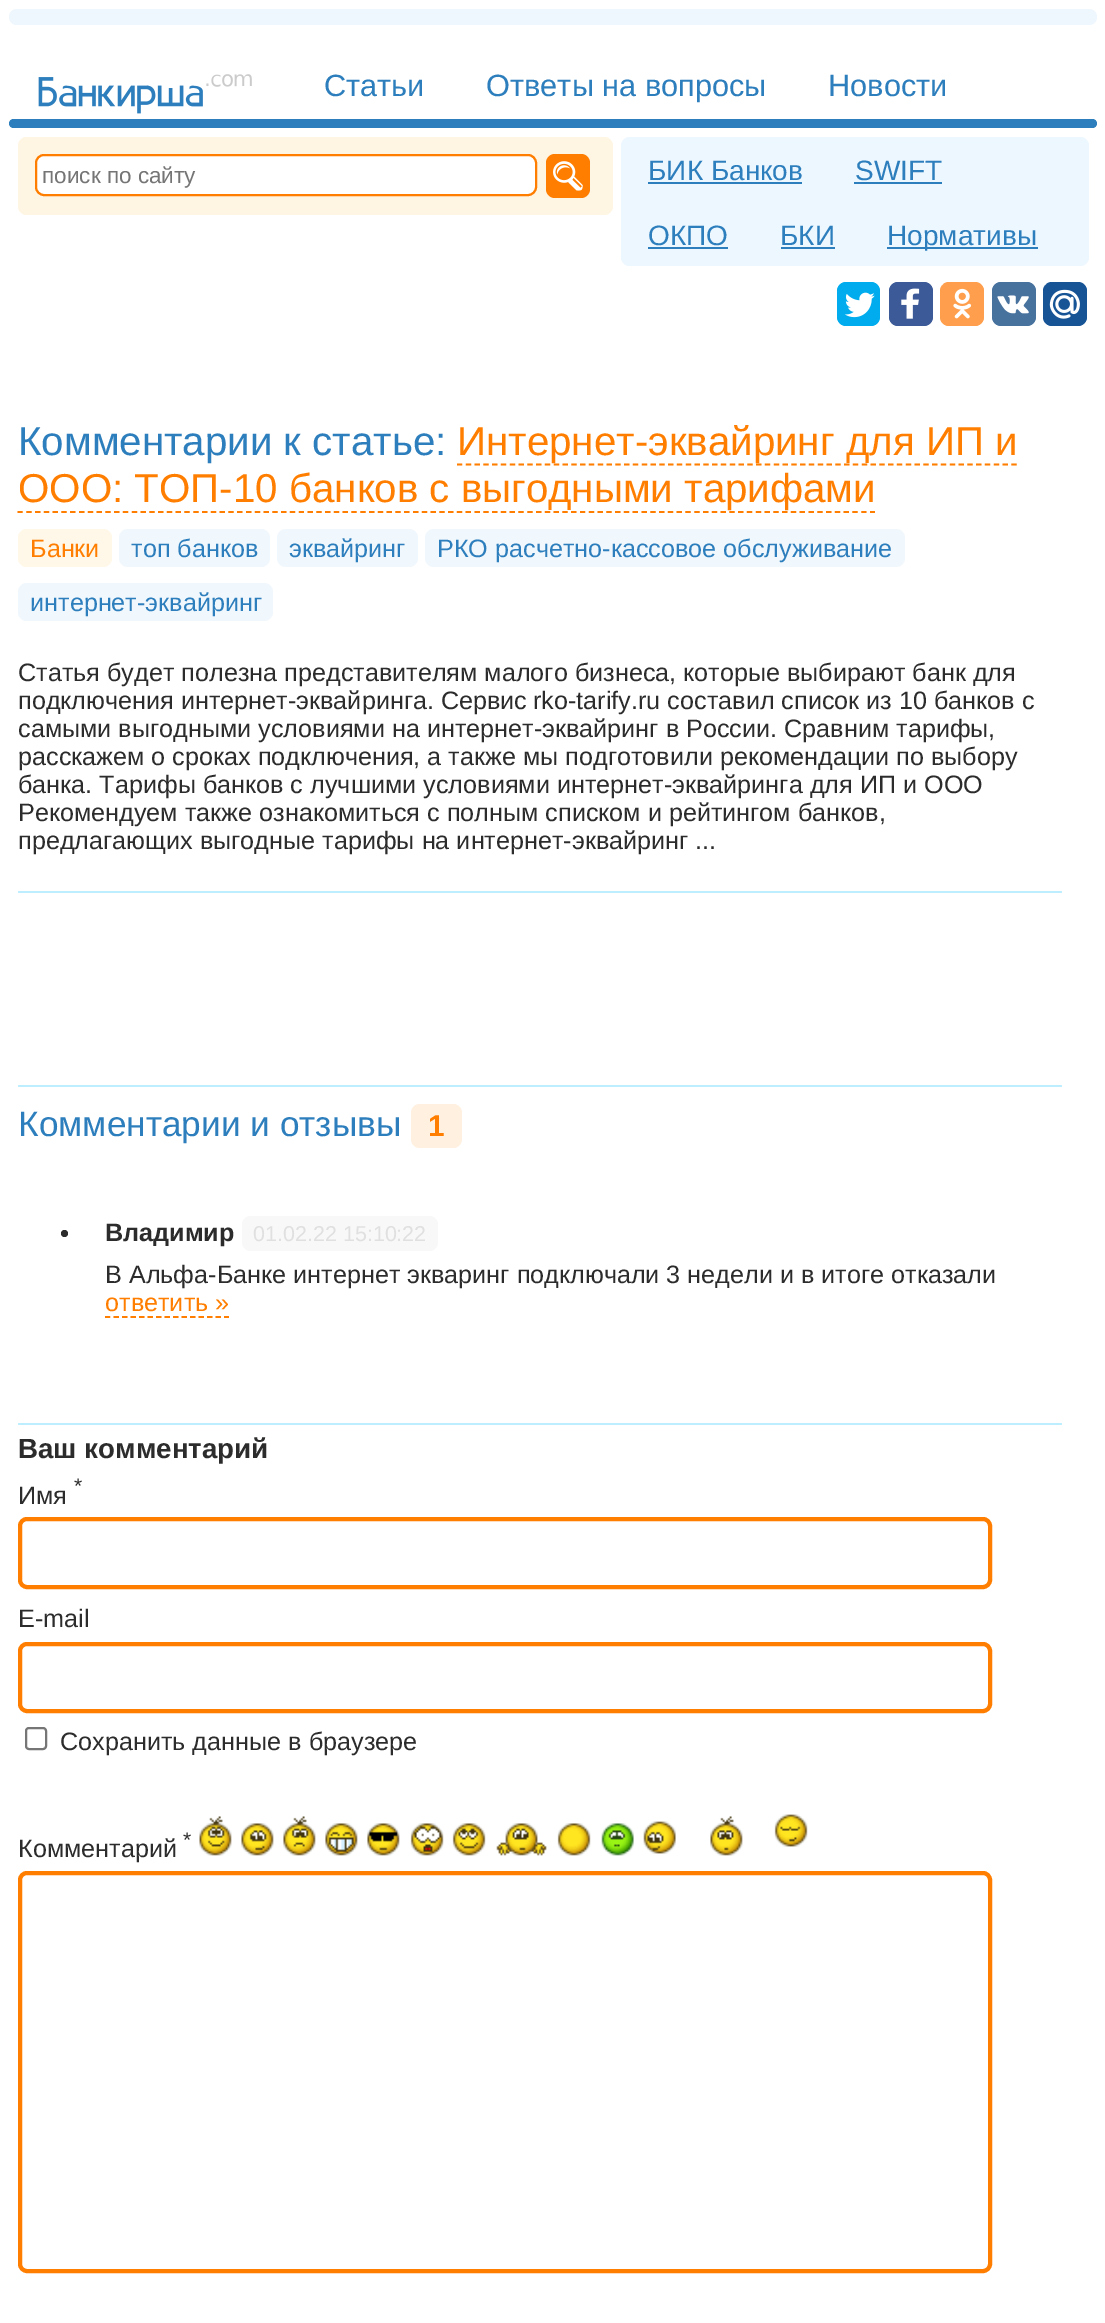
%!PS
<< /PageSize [1105 2323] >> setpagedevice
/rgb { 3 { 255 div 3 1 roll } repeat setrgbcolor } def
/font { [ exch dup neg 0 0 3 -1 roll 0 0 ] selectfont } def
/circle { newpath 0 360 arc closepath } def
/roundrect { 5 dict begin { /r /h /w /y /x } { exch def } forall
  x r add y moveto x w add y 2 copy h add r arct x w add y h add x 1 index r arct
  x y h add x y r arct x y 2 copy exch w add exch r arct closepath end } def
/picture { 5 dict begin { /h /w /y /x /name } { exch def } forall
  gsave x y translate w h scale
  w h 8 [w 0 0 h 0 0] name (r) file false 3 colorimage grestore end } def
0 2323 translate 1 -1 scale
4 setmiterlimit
255 255 255 rgb
0 0 1105 2323 rectfill
238 247 253 rgb
9 9 1088 16 8 roundrect fill
(img/1.rgb) 38 74 214 40 picture
45 126 188 rgb
9 119 1088 9 4.5 roundrect fill
255 245 227 rgb
18 137 595 78 9 roundrect fill
255 255 255 rgb
36 155 500 40 8 roundrect gsave fill grestore
255 126 0 rgb
2 setlinewidth
stroke
546 154 44 44 9 roundrect fill
(img/2.rgb) 553 161 30 30 picture
236 247 255 rgb
621 137 468 129 9 roundrect fill
[
  [648 182 154 2 45 126 188]
  [854 182 88 2 45 126 188]
  [648 247 80 2 45 126 188]
  [781 247 54 2 45 126 188]
  [887 247 151 2 45 126 188]
] { aload pop rgb rectfill } forall
(img/3.rgb) 837 282 43 44 picture
(img/4.rgb) 889 282 44 44 picture
255 159 77 rgb
940 282 44 44 9 roundrect fill
(img/5.rgb) 942 284 42 42 picture
(img/6.rgb) 992 282 44 44 picture
22 84 150 rgb
1043 282 44 44 9 roundrect fill
(img/7.rgb) 1045 284 42 42 picture
255 126 0 rgb
1.8 setlinewidth
[5.25 3.55] 0 setdash
457 464.5 moveto 1017 464.5 lineto stroke
[5.25 3.54] 0 setdash
17.5 512 moveto 875 512 lineto stroke
255 247 231 rgb
18 529 94 38 9 roundrect fill
241 248 253 rgb
119 529 151 38 9 roundrect fill
277 529 141 38 9 roundrect fill
425 529 480 38 9 roundrect fill
18 583 255 38 9 roundrect fill
189 238 255 rgb
18 891 1044 2 1 roundrect fill
18 1085 1044 2 1 roundrect fill
255 240 224 rgb
411 1104 51 44 9 roundrect fill
44 44 44 rgb
64.5 1233.5 3.5 circle fill
248 248 248 rgb
242 1216 196 35 9 roundrect fill
255 126 0 rgb
[5.25 3.26] 0 setdash
105 1317 moveto 229 1317 lineto stroke
189 238 255 rgb
18 1423 1044 2 1 roundrect fill
255 126 0 rgb
4 setlinewidth
[] 0 setdash
20 1519 970 68 7 roundrect stroke
20 1644 970 67 7 roundrect stroke
118 118 118 rgb
2 setlinewidth
26 1728 20 21 3 roundrect stroke
(img/8.rgb) 199 1816 33 40 picture
(img/9.rgb) 241 1823 33 33 picture
(img/10.rgb) 283 1816 33 40 picture
(img/11.rgb) 325 1823 33 33 picture
(img/12.rgb) 367 1823 33 33 picture
(img/13.rgb) 410 1823 34 33 picture
(img/14.rgb) 452 1823 34 33 picture
(img/15.rgb) 496 1823 51 33 picture
(img/16.rgb) 557 1823 34 33 picture
(img/17.rgb) 601 1823 33 33 picture
(img/18.rgb) 643 1821 33 33 picture
(img/19.rgb) 710 1816 33 40 picture
(img/20.rgb) 774 1814 34 33 picture
255 126 0 rgb
4 setlinewidth
20 1873 970 398 7 roundrect stroke
/LiberationSans-Regular 30.75 font
45 126 188 rgb
[
  [(Статьи) 324 96]
  [(Ответы на вопросы) 486 96]
  [(Новости) 828 96]
] { aload pop moveto show } forall
/LiberationSans-Regular 22.5 font
117 117 117 rgb
42 183 moveto (поиск по сайту) show
/LiberationSans-Regular 28 font
45 126 188 rgb
[
  [(БИК Банков) 648 180]
  [(SWIFT) 855 180]
  [(ОКПО) 648 245]
  [(БКИ) 780 245]
  [(Нормативы) 887 245]
] { aload pop moveto show } forall
/LiberationSans-Regular 40.3 font
18 455 moveto (Комментарии к статье:) show
255 126 0 rgb
457 455 moveto (Интернет-эквайринг для ИП и) show
18 502 moveto (ООО: ТОП-10 банков с выгодными тарифами) show
/LiberationSans-Regular 25.2 font
30 557 moveto (Банки) show
45 126 188 rgb
[
  [(топ банков) 131 557]
  [(эквайринг) 289 557]
  [(РКО расчетно-кассовое обслуживание) 437 557]
  [(интернет-эквайринг) 30 611]
] { aload pop moveto show } forall
44 44 44 rgb
[
  [(Статья будет полезна представителям малого бизнеса, которые выбирают банк для) 18 681]
  [(подключения интернет-эквайринга. Сервис) 18 709]
  [(rko-tarify.ru составил список из 10 банков с) 533 709]
  [(самыми выгодными условиями на интернет-эквайринг в России. Сравним тарифы,) 18 737]
  [(расскажем о сроках подключения, а также мы подготовили рекомендации по выбору) 18 765]
  [(банка. Тарифы банков с лучшими условиями интернет-эквайринга для ИП и ООО) 18 793]
  [(Рекомендуем также ознакомиться с полным списком и рейтингом банков,) 18 821]
  [(предлагающих выгодные тарифы на интернет-эквайринг ...) 18 849]
] { aload pop moveto show } forall
/LiberationSans-Regular 35.25 font
45 126 188 rgb
18 1136 moveto (Комментарии и отзывы) show
/LiberationSans-Bold 30 font
255 126 0 rgb
428 1136 moveto (1) show
/LiberationSans-Bold 25.2 font
44 44 44 rgb
105 1241 moveto (Владимир) show
/LiberationSans-Regular 21.5 font
224 224 224 rgb
253 1241 moveto (01.02.22 15:10:22) show
/LiberationSans-Regular 25.2 font
44 44 44 rgb
105 1283 moveto (В Альфа-Банке интернет экваринг подключали 3 недели и в итоге отказали) show
255 126 0 rgb
105 1311 moveto (ответить ») show
/LiberationSans-Bold 27.75 font
44 44 44 rgb
18 1458 moveto (Ваш комментарий) show
/LiberationSans-Regular 21 font
74 1493 moveto (*) show
/LiberationSans-Regular 25.2 font
[
  [(Имя) 18 1504]
  [(E-mail) 18 1627]
  [(Сохранить данные в браузере) 60 1750]
] { aload pop moveto show } forall
/LiberationSans-Regular 21 font
183 1847 moveto (*) show
/LiberationSans-Regular 25.2 font
18 1857 moveto (Комментарий) show
showpage
